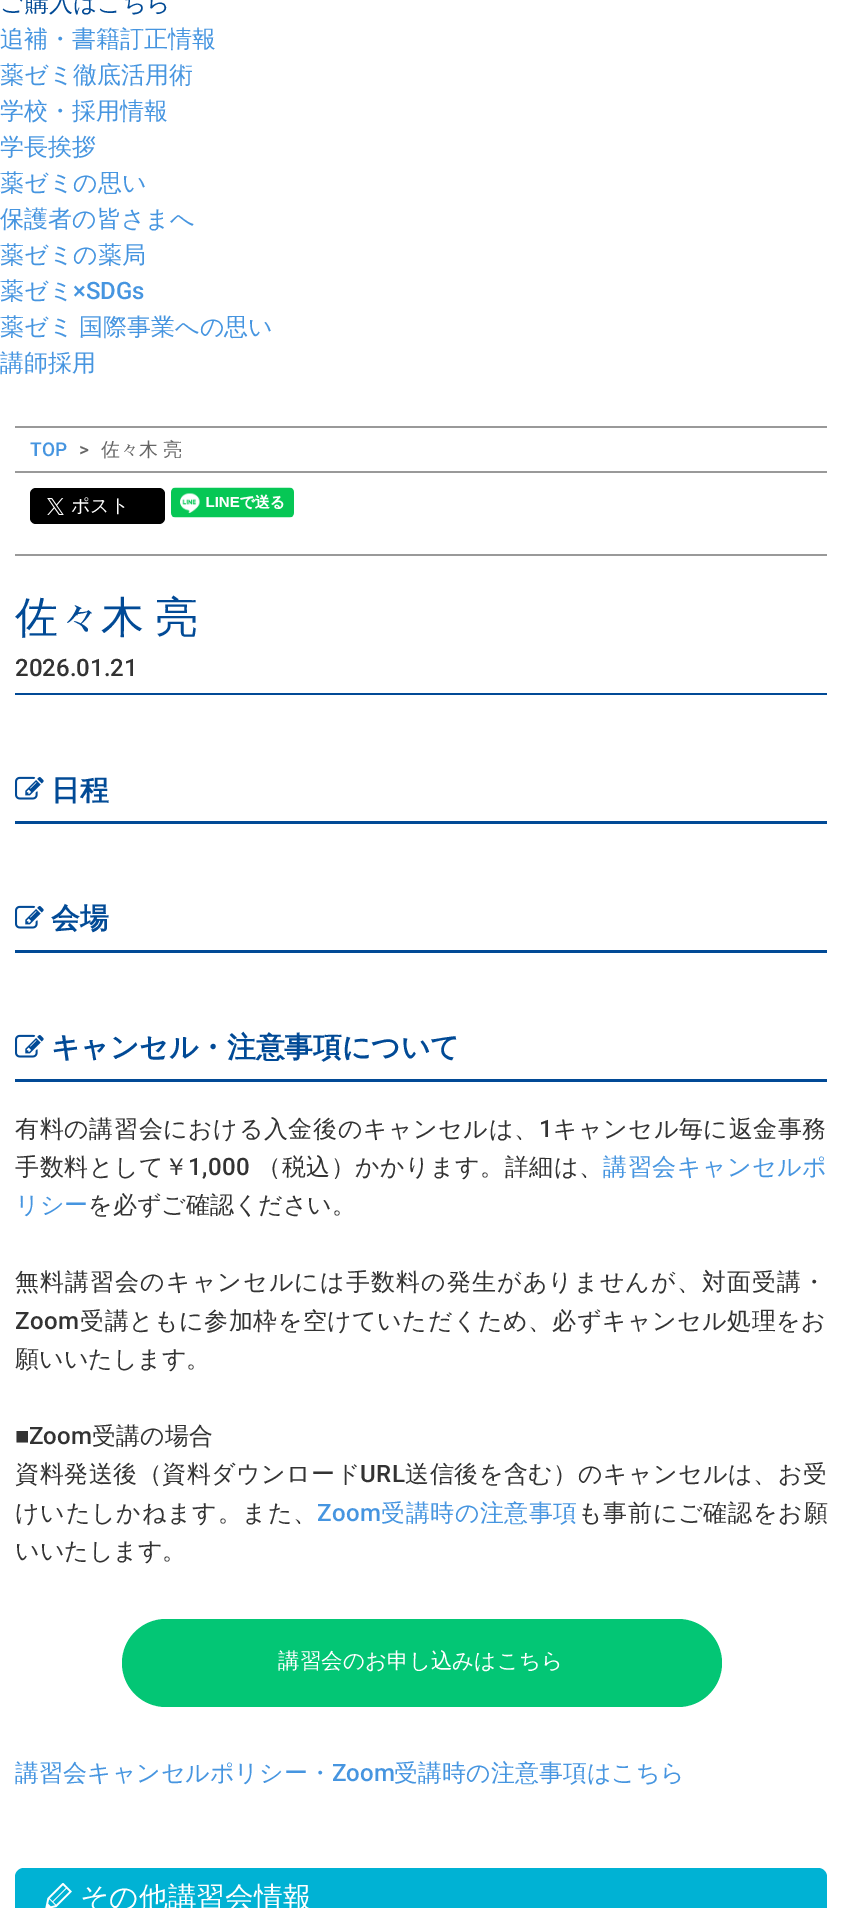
%!PS
<< /PageSize [841 1908] >> setpagedevice
/rgb { 3 { 255 div 3 1 roll } repeat setrgbcolor } def
/font { [ exch dup neg 0 0 3 -1 roll 0 0 ] selectfont } def
/roundrect { 5 dict begin { /r /h /w /y /x } { exch def } forall
  x r add y moveto x w add y 2 copy h add r arct x w add y h add x 1 index r arct
  x y h add x y r arct x y 2 copy exch w add exch r arct closepath end } def
/picture { 5 dict begin { /h /w /y /x /name } { exch def } forall
  gsave x y translate w h scale
  w h 8 [w 0 0 h 0 0] name (r) file false 3 colorimage grestore end } def
0 1908 translate 1 -1 scale
4 setmiterlimit
255 255 255 rgb
0 0 841 1908 rectfill
[
  [15 426 812 2 153 153 153]
  [15 471 812 2 153 153 153]
  [15 554 812 2 153 153 153]
] { aload pop rgb rectfill } forall
0 0 0 rgb
30 488 135 36 6 roundrect fill
(img/1.rgb) 47 498 17 17 picture
(img/2.rgb) 171 487 123 31 picture
1 74 150 rgb
15 693 812 2 rectfill
15 821 812 3 rectfill
(img/3.rgb) 15 776 29 24 picture
15 950 812 3 rectfill
(img/3.rgb) 15 905 29 24 picture
15 1079 812 3 rectfill
(img/3.rgb) 15 1034 29 24 picture
3 198 117 rgb
122 1619 600 88 44 roundrect fill
0 178 212 rgb
24 1868 moveto 818 1868 lineto 823 1868 827 1872 827 1877 curveto 827 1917 lineto 15 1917 lineto 15 1877 lineto 15 1872 19 1868 24 1868 curveto closepath fill
(img/4.rgb) 45 1883 27 25 picture
/WenQuanYiZenHei-Medium 24 font
1 74 150 rgb
0 11 moveto (ご購入はこちら) show
70 149 224 rgb
[
  [(追補・書籍訂正情報) 0 47]
  [(薬ゼミ徹底活用術) 0 83]
  [(学校・採用情報) 0 119]
  [(学長挨拶) 0 155]
  [(薬ゼミの思い) 0 191]
  [(保護者の皆さまへ) 0 227]
  [(薬ゼミの薬局) 0 263]
  [(薬ゼミ) 0 299]
] { aload pop moveto show } forall
/Roboto-Medium 24 font
73 299 moveto (×SDGs) show
/WenQuanYiZenHei-Medium 24 font
0 335 moveto -1 0 32 (薬ゼミ 国際事業への思い) widthshow
0 371 moveto (講師採用) show
/Roboto-Medium 19 font
30 456 moveto (TOP) show
102 102 102 rgb
79 456 moveto (>) show
/WenQuanYiZenHei-Medium 19 font
101 456 moveto -1 0 32 (佐々木 亮) widthshow
255 255 255 rgb
71 512 moveto (ポスト) show
/WenQuanYiZenHei-Medium 43 font
1 74 150 rgb
15 632 moveto -2 0 32 (佐々木 亮) widthshow
/Roboto-Medium 24 font
51 51 51 rgb
15 676 moveto (2026.01.21) show
/WenQuanYiZenHei-Bold 28.75 font
1 74 150 rgb
[
  [(日程) 51 800]
  [(会場) 51 928]
  [(キャンセル・注意事項について) 51 1057]
] { aload pop moveto show } forall
/WenQuanYiZenHei-Medium 24 font
51 51 51 rgb
15 1137 moveto 0.6 0 (有料の講習会における入金後のキャンセルは、) ashow
/Roboto-Medium 24 font
539 1137 moveto 0.6 0 (1) ashow
/WenQuanYiZenHei-Medium 24 font
553 1137 moveto 0.6 0 (キャンセル毎に返金事務) ashow
15 1175 moveto 0.5 0 (手数料として￥) ashow
/Roboto-Medium 24 font
188 1175 moveto 0.5 0 (1,000) ashow
/WenQuanYiZenHei-Medium 24 font
257 1175 moveto 0.5 0 (（税込）かかります。詳細は、) ashow
70 149 224 rgb
603 1175 moveto 0.5 0 (講習会キャンセルポ) ashow
15 1213 moveto (リシー) show
51 51 51 rgb
88 1213 moveto (を必ずご確認ください。) show
15 1290 moveto 1.1 0 (無料講習会のキャンセルには手数料の発生がありませんが、対面受講・) ashow
/Roboto-Medium 24 font
15 1329 moveto 0.5 0 (Zoom) ashow
/WenQuanYiZenHei-Medium 24 font
80 1329 moveto 0.5 0 (受講ともに参加枠を空けていただくため、必ずキャンセル処理をお) ashow
15 1367 moveto (願いいたします。) show
/LiberationSans-Regular 24 font
15 1444 moveto (■) show
/Roboto-Medium 24 font
29 1444 moveto (Zoom) show
/WenQuanYiZenHei-Medium 24 font
92 1444 moveto (受講の場合) show
15 1482 moveto 0.5 0 (資料発送後（資料ダウンロード) ashow
/Roboto-Medium 24 font
360 1482 moveto 0.5 0 (URL) ashow
/WenQuanYiZenHei-Medium 24 font
405 1482 moveto 0.5 0 (送信後を含む）のキャンセルは、お受) ashow
15 1521 moveto 0.75 0 (けいたしかねます。また、) ashow
/Roboto-Medium 24 font
70 149 224 rgb
317 1521 moveto 0.5 0 (Zoom) ashow
/WenQuanYiZenHei-Medium 24 font
381 1521 moveto 0.5 0 (受講時の注意事項) ashow
51 51 51 rgb
578 1521 moveto 0.75 0 (も事前にご確認をお願) ashow
15 1559 moveto (いいたします。) show
/WenQuanYiZenHei-Medium 21.6 font
255 255 255 rgb
278 1668 moveto (講習会のお申し込みはこちら) show
/WenQuanYiZenHei-Medium 24 font
70 149 224 rgb
15 1781 moveto (講習会キャンセルポリシー・) show
/Roboto-Medium 24 font
332 1781 moveto (Zoom) show
/WenQuanYiZenHei-Medium 24 font
394 1781 moveto (受講時の注意事項はこちら) show
/WenQuanYiZenHei-Medium 28.75 font
255 255 255 rgb
80 1907 moveto (その他講習会情報) show
showpage
